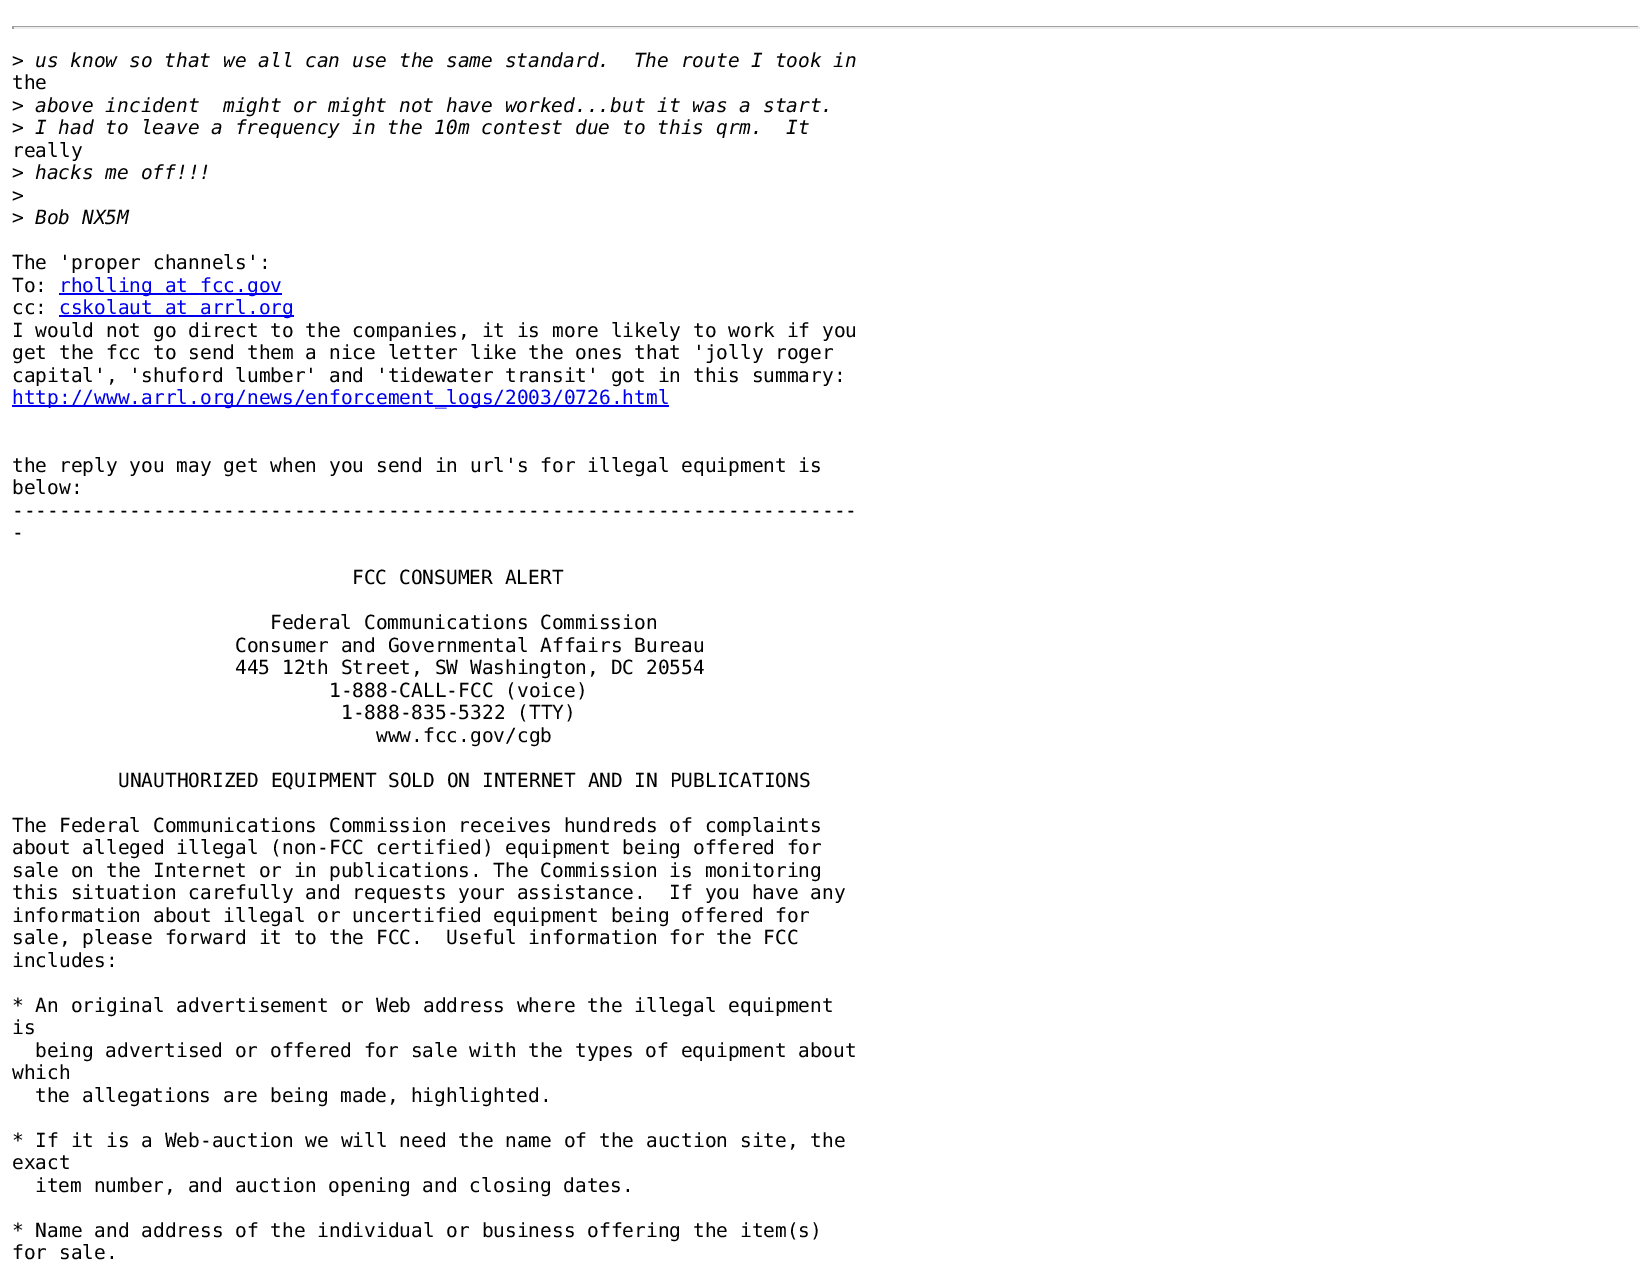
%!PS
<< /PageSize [1651 1276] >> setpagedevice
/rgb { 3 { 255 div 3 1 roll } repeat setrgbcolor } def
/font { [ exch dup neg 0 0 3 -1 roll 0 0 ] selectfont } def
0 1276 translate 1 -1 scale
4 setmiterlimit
255 255 255 rgb
0 0 1651 1276 rectfill
[
  [12 26 1628 1 159 159 159]
  [1638 26 2 3 238 238 238]
  [12 27 1628 2 238 238 238]
  [12 26 2 3 159 159 159]
  [59 293 223 2 0 0 238]
  [59 315 235 2 0 0 238]
  [12 405 657 2 0 0 238]
] { aload pop rgb rectfill } forall
/DejaVuSansMono-Regular 19.5 font
0 0 0 rgb
12 67 moveto (>) show
/DejaVuSansMono-Italic 19.5 font
35 67 moveto (us know so that we all can use the same standard.  The route I took in) show
/DejaVuSansMono-Regular 19.5 font
12 89 moveto (the) show
12 112 moveto (>) show
/DejaVuSansMono-Italic 19.5 font
35 112 moveto (above incident  might or might not have worked...but it was a start.) show
/DejaVuSansMono-Regular 19.5 font
12 134 moveto (>) show
/DejaVuSansMono-Italic 19.5 font
35 134 moveto (I had to leave a frequency in the 10m contest due to this qrm.  It) show
/DejaVuSansMono-Regular 19.5 font
12 157 moveto (really) show
12 179 moveto (>) show
/DejaVuSansMono-Italic 19.5 font
35 179 moveto (hacks me off!!!) show
/DejaVuSansMono-Regular 19.5 font
12 202 moveto (>) show
12 224 moveto (>) show
/DejaVuSansMono-Italic 19.5 font
35 224 moveto (Bob NX5M) show
/DejaVuSansMono-Regular 19.5 font
12 269 moveto (The 'proper channels':) show
12 292 moveto (To:) show
0 0 238 rgb
59 292 moveto (rholling at fcc.gov) show
0 0 0 rgb
12 314 moveto (cc:) show
0 0 238 rgb
59 314 moveto (cskolaut at arrl.org) show
0 0 0 rgb
[
  [(I would not go direct to the companies, it is more likely to work if you) 12 337]
  [(get the fcc to send them a nice letter like the ones that 'jolly roger) 12 359]
  [(capital', 'shuford lumber' and 'tidewater transit' got in this summary:) 12 382]
] { aload pop moveto show } forall
0 0 238 rgb
12 404 moveto (http://www.arrl.org/news/enforcement_logs/2003/0726.html) show
0 0 0 rgb
[
  [(the reply you may get when you send in url's for illegal equipment is) 12 472]
  [(below:) 12 494]
  [(------------------------------------------------------------------------) 12 517]
  [(-) 12 539]
  [(FCC CONSUMER ALERT) 352 584]
  [(Federal Communications Commission) 270 629]
  [(Consumer and Governmental Affairs Bureau) 235 652]
  [(445 12th Street, SW Washington, DC 20554) 235 674]
  [(1-888-CALL-FCC \(voice\)) 329 697]
  [(1-888-835-5322 \(TTY\)) 341 719]
  [(www.fcc.gov/cgb) 376 742]
  [(UNAUTHORIZED EQUIPMENT SOLD ON INTERNET AND IN PUBLICATIONS) 118 787]
  [(The Federal Communications Commission receives hundreds of complaints) 12 832]
  [(about alleged illegal \(non-FCC certified\) equipment being offered for) 12 854]
  [(sale on the Internet or in publications. The Commission is monitoring) 12 877]
  [(this situation carefully and requests your assistance.  If you have any) 12 899]
  [(information about illegal or uncertified equipment being offered for) 12 922]
  [(sale, please forward it to the FCC.  Useful information for the FCC) 12 944]
  [(includes:) 12 967]
  [(* An original advertisement or Web address where the illegal equipment) 12 1012]
  [(is) 12 1034]
  [(being advertised or offered for sale with the types of equipment about) 35 1057]
  [(which) 12 1079]
  [(the allegations are being made, highlighted.) 35 1102]
  [(* If it is a Web-auction we will need the name of the auction site, the) 12 1147]
  [(exact) 12 1169]
  [(item number, and auction opening and closing dates.) 35 1192]
  [(* Name and address of the individual or business offering the item\(s\)) 12 1237]
  [(for sale.) 12 1259]
] { aload pop moveto show } forall
showpage
